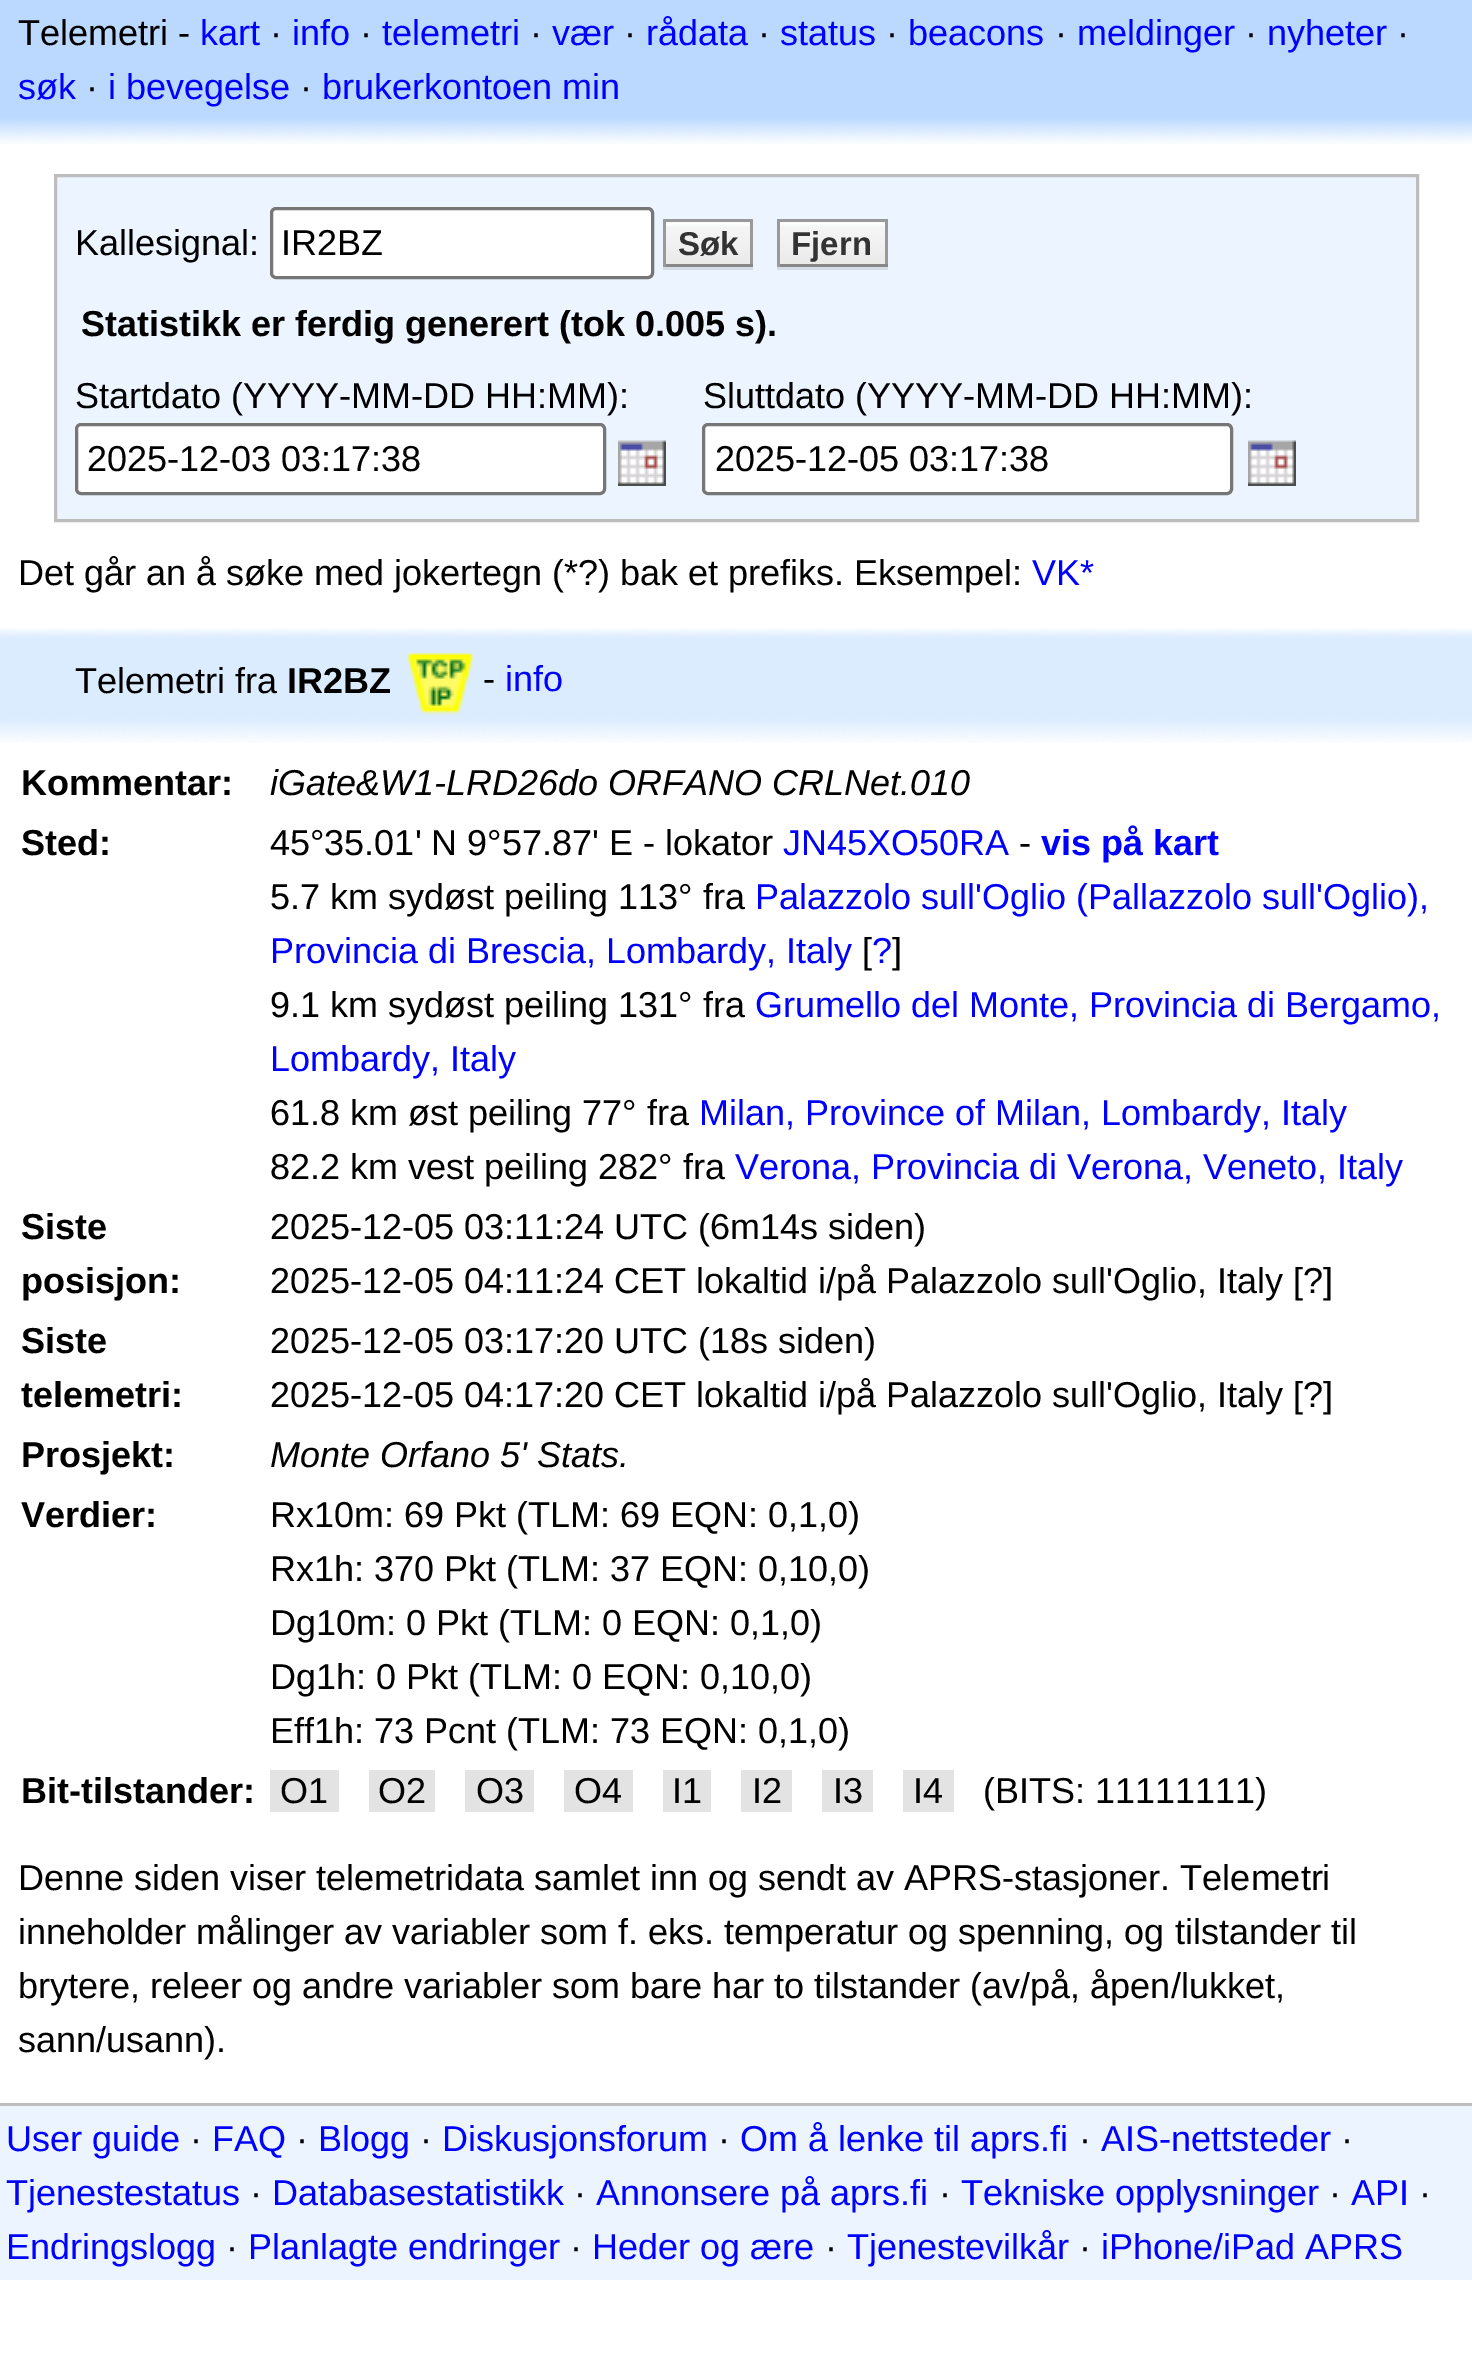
%!PS
<< /PageSize [1472 2359] >> setpagedevice
/rgb { 3 { 255 div 3 1 roll } repeat setrgbcolor } def
/font { [ exch dup neg 0 0 3 -1 roll 0 0 ] selectfont } def
/roundrect { 5 dict begin { /r /h /w /y /x } { exch def } forall
  x r add y moveto x w add y 2 copy h add r arct x w add y h add x 1 index r arct
  x y h add x y r arct x y 2 copy exch w add exch r arct closepath end } def
/picture { 5 dict begin { /h /w /y /x /name } { exch def } forall
  gsave x y translate w h scale
  w h 8 [w 0 0 h 0 0] name (r) file false 3 colorimage grestore end } def
0 2359 translate 1 -1 scale
4 setmiterlimit
255 255 255 rgb
0 0 1472 2359 rectfill
187 217 255 rgb
0 0 1472 114 rectfill
(img/1.rgb) 0 114 1472 30 picture
235 244 255 rgb
55.5 175.5 moveto 1417.5 175.5 lineto 1417.5 520.5 lineto 55.5 520.5 lineto closepath gsave fill grestore
189 189 189 rgb
3 setlinewidth
stroke
255 255 255 rgb
271.5 208.5 381 69 4.5 roundrect gsave fill grestore
118 118 118 rgb
stroke
212 220 230 rgb
663 267 90 3 rectfill
238 238 238 rgb
666 222 84 1 rectfill
(img/2.rgb) 666 222 84 42 picture
[
  [663 219 90 3 153 153 153]
  [750 219 3 48 153 153 153]
  [663 264 90 3 136 136 136]
  [663 219 3 48 153 153 153]
  [777 267 111 3 212 220 230]
  [780 222 105 1 238 238 238]
] { aload pop rgb rectfill } forall
(img/3.rgb) 780 222 105 42 picture
[
  [777 219 111 3 153 153 153]
  [885 219 3 48 153 153 153]
  [777 264 111 3 136 136 136]
  [777 219 3 48 153 153 153]
] { aload pop rgb rectfill } forall
255 255 255 rgb
76.5 424.5 528 69 4.5 roundrect gsave fill grestore
118 118 118 rgb
stroke
(img/4.rgb) 618 440 48 46 picture
255 255 255 rgb
703.5 424.5 528 69 4.5 roundrect gsave fill grestore
118 118 118 rgb
stroke
(img/5.rgb) 1248 440 48 46 picture
(img/6.rgb) 0 628 1472 11 picture
220 236 255 rgb
0 639 1472 78 rectfill
(img/7.rgb) 407 653 67 62 picture
(img/8.rgb) 0 717 1472 26 picture
[
  [270 1770 69 42 227 227 227]
  [369 1770 66 42 227 227 227]
  [465 1770 69 42 227 227 227]
  [564 1770 69 42 227 227 227]
  [663 1770 48 42 227 227 227]
  [741 1770 51 42 227 227 227]
  [822 1770 51 42 227 227 227]
  [903 1770 51 42 227 227 227]
  [0 2106 1472 174 235 244 255]
  [0 2103 1472 3 189 189 189]
] { aload pop rgb rectfill } forall
/LiberationSans-Regular 36 font
0 0 0 rgb
18 45 moveto (Telemetri -) show
0 0 255 rgb
200 45 moveto (kart) show
0 0 0 rgb
270 45 moveto (·) show
0 0 255 rgb
292 45 moveto (info) show
0 0 0 rgb
360 45 moveto (·) show
0 0 255 rgb
382 45 moveto (telemetri) show
0 0 0 rgb
530 45 moveto (·) show
0 0 255 rgb
552 45 moveto (vær) show
0 0 0 rgb
624 45 moveto (·) show
0 0 255 rgb
646 45 moveto (rådata) show
0 0 0 rgb
758 45 moveto (·) show
0 0 255 rgb
780 45 moveto (status) show
0 0 0 rgb
886 45 moveto (·) show
0 0 255 rgb
908 45 moveto (beacons) show
0 0 0 rgb
1055 45 moveto (·) show
0 0 255 rgb
1077 45 moveto (meldinger) show
0 0 0 rgb
1245 45 moveto (·) show
0 0 255 rgb
1267 45 moveto (nyheter) show
0 0 0 rgb
1397 45 moveto (·) show
0 0 255 rgb
18 99 moveto (søk) show
0 0 0 rgb
86 99 moveto (·) show
0 0 255 rgb
108 99 moveto (i bevegelse) show
0 0 0 rgb
300 99 moveto (·) show
0 0 255 rgb
322 99 moveto (brukerkontoen min) show
0 0 0 rgb
75 255 moveto (Kallesignal:) show
281 255 moveto (IR2BZ) show
/LiberationSans-Bold 33 font
51 51 51 rgb
678 255 moveto (Søk) show
791 255 moveto (Fjern) show
/LiberationSans-Bold 36 font
0 0 0 rgb
81 336 moveto (Statistikk er ferdig generert \(tok 0.005 s\).) show
/LiberationSans-Regular 36 font
[
  [(Startdato \(YYYY-MM-DD HH:MM\):) 75 408]
  [(2025-12-03 03:17:38) 87 471]
  [(Sluttdato \(YYYY-MM-DD HH:MM\):) 703 408]
  [(2025-12-05 03:17:38) 715 471]
  [(Det går an å søke med jokertegn \(*?\) bak et prefiks. Eksempel:) 18 585]
] { aload pop moveto show } forall
0 0 255 rgb
1032 585 moveto (VK*) show
0 0 0 rgb
75 693 moveto (Telemetri fra) show
/LiberationSans-Bold 36 font
287 693 moveto (IR2BZ) show
/LiberationSans-Regular 36 font
483 691 moveto (-) show
0 0 255 rgb
505 691 moveto (info) show
/LiberationSans-Bold 36 font
0 0 0 rgb
21 795 moveto (Kommentar:) show
/LiberationSans-Italic 36 font
270 795 moveto (iGate&W1-LRD26do ORFANO CRLNet.010) show
/LiberationSans-Bold 36 font
21 855 moveto (Sted:) show
/LiberationSans-Regular 36 font
270 855 moveto (45°35.01' N 9°57.87' E - lokator) show
0 0 255 rgb
783 855 moveto (JN45XO50RA) show
0 0 0 rgb
1019 855 moveto (-) show
/LiberationSans-Bold 36 font
0 0 255 rgb
1041 855 moveto (vis på kart) show
/LiberationSans-Regular 36 font
0 0 0 rgb
270 909 moveto (5.7 km sydøst peiling 113° fra) show
0 0 255 rgb
755 909 moveto (Palazzolo sull'Oglio \(Pallazzolo sull'Oglio\),) show
270 963 moveto (Provincia di Brescia, Lombardy, Italy) show
0 0 0 rgb
862 963 moveto ([) show
0 0 255 rgb
872 963 moveto (?) show
0 0 0 rgb
892 963 moveto (]) show
270 1017 moveto (9.1 km sydøst peiling 131° fra) show
0 0 255 rgb
755 1017 moveto (Grumello del Monte, Provincia di Bergamo,) show
270 1071 moveto (Lombardy, Italy) show
0 0 0 rgb
270 1125 moveto (61.8 km øst peiling 77° fra) show
0 0 255 rgb
699 1125 moveto (Milan, Province of Milan, Lombardy, Italy) show
0 0 0 rgb
270 1179 moveto (82.2 km vest peiling 282° fra) show
0 0 255 rgb
735 1179 moveto (Verona, Provincia di Verona, Veneto, Italy) show
/LiberationSans-Bold 36 font
0 0 0 rgb
21 1239 moveto (Siste) show
21 1293 moveto (posisjon:) show
/LiberationSans-Regular 36 font
270 1239 moveto (2025-12-05 03:11:24 UTC \(6m14s siden\)) show
270 1293 moveto (2025-12-05 04:11:24 CET lokaltid i/på Palazzolo sull'Oglio, Italy [?]) show
/LiberationSans-Bold 36 font
21 1353 moveto (Siste) show
21 1407 moveto (telemetri:) show
/LiberationSans-Regular 36 font
270 1353 moveto (2025-12-05 03:17:20 UTC \(18s siden\)) show
270 1407 moveto (2025-12-05 04:17:20 CET lokaltid i/på Palazzolo sull'Oglio, Italy [?]) show
/LiberationSans-Bold 36 font
21 1467 moveto (Prosjekt:) show
/LiberationSans-Italic 36 font
270 1467 moveto (Monte Orfano 5' Stats.) show
/LiberationSans-Bold 36 font
21 1527 moveto (Verdier:) show
/LiberationSans-Regular 36 font
[
  [(Rx10m: 69 Pkt \(TLM: 69 EQN: 0,1,0\)) 270 1527]
  [(Rx1h: 370 Pkt \(TLM: 37 EQN: 0,10,0\)) 270 1581]
  [(Dg10m: 0 Pkt \(TLM: 0 EQN: 0,1,0\)) 270 1635]
  [(Dg1h: 0 Pkt \(TLM: 0 EQN: 0,10,0\)) 270 1689]
  [(Eff1h: 73 Pcnt \(TLM: 73 EQN: 0,1,0\)) 270 1743]
] { aload pop moveto show } forall
/LiberationSans-Bold 36 font
21 1803 moveto (Bit-tilstander:) show
/LiberationSans-Regular 36 font
[
  [(O1) 280 1803]
  [(O2) 378 1803]
  [(O3) 476 1803]
  [(O4) 574 1803]
  [(I1) 672 1803]
  [(I2) 752 1803]
  [(I3) 833 1803]
  [(I4) 913 1803]
  [(\(BITS: 11111111\)) 983 1803]
  [(Denne siden viser telemetridata samlet inn og sendt av APRS-stasjoner. Telemetri) 18 1890]
  [(inneholder målinger av variabler som f. eks. temperatur og spenning, og tilstander til) 18 1944]
  [(brytere, releer og andre variabler som bare har to tilstander \(av/på, åpen/lukket,) 18 1998]
  [(sann/usann\).) 18 2052]
] { aload pop moveto show } forall
0 0 255 rgb
6 2151 moveto (User guide) show
0 0 0 rgb
190 2151 moveto (·) show
0 0 255 rgb
212 2151 moveto (FAQ) show
0 0 0 rgb
296 2151 moveto (·) show
0 0 255 rgb
318 2151 moveto (Blogg) show
0 0 0 rgb
420 2151 moveto (·) show
0 0 255 rgb
442 2151 moveto (Diskusjonsforum) show
0 0 0 rgb
718 2151 moveto (·) show
0 0 255 rgb
740 2151 moveto (Om å lenke til aprs.fi) show
0 0 0 rgb
1079 2151 moveto (·) show
0 0 255 rgb
1101 2151 moveto (AIS-nettsteder) show
0 0 0 rgb
1341 2151 moveto (·) show
0 0 255 rgb
6 2205 moveto (Tjenestestatus) show
0 0 0 rgb
250 2205 moveto (·) show
0 0 255 rgb
272 2205 moveto (Databasestatistikk) show
0 0 0 rgb
574 2205 moveto (·) show
0 0 255 rgb
596 2205 moveto (Annonsere på aprs.fi) show
0 0 0 rgb
939 2205 moveto (·) show
0 0 255 rgb
961 2205 moveto (Tekniske opplysninger) show
0 0 0 rgb
1329 2205 moveto (·) show
0 0 255 rgb
1351 2205 moveto (API) show
0 0 0 rgb
1419 2205 moveto (·) show
0 0 255 rgb
6 2259 moveto (Endringslogg) show
0 0 0 rgb
226 2259 moveto (·) show
0 0 255 rgb
248 2259 moveto (Planlagte endringer) show
0 0 0 rgb
570 2259 moveto (·) show
0 0 255 rgb
592 2259 moveto (Heder og ære) show
0 0 0 rgb
825 2259 moveto (·) show
0 0 255 rgb
847 2259 moveto (Tjenestevilkår) show
0 0 0 rgb
1079 2259 moveto (·) show
0 0 255 rgb
1101 2259 moveto (iPhone/iPad APRS) show
showpage
